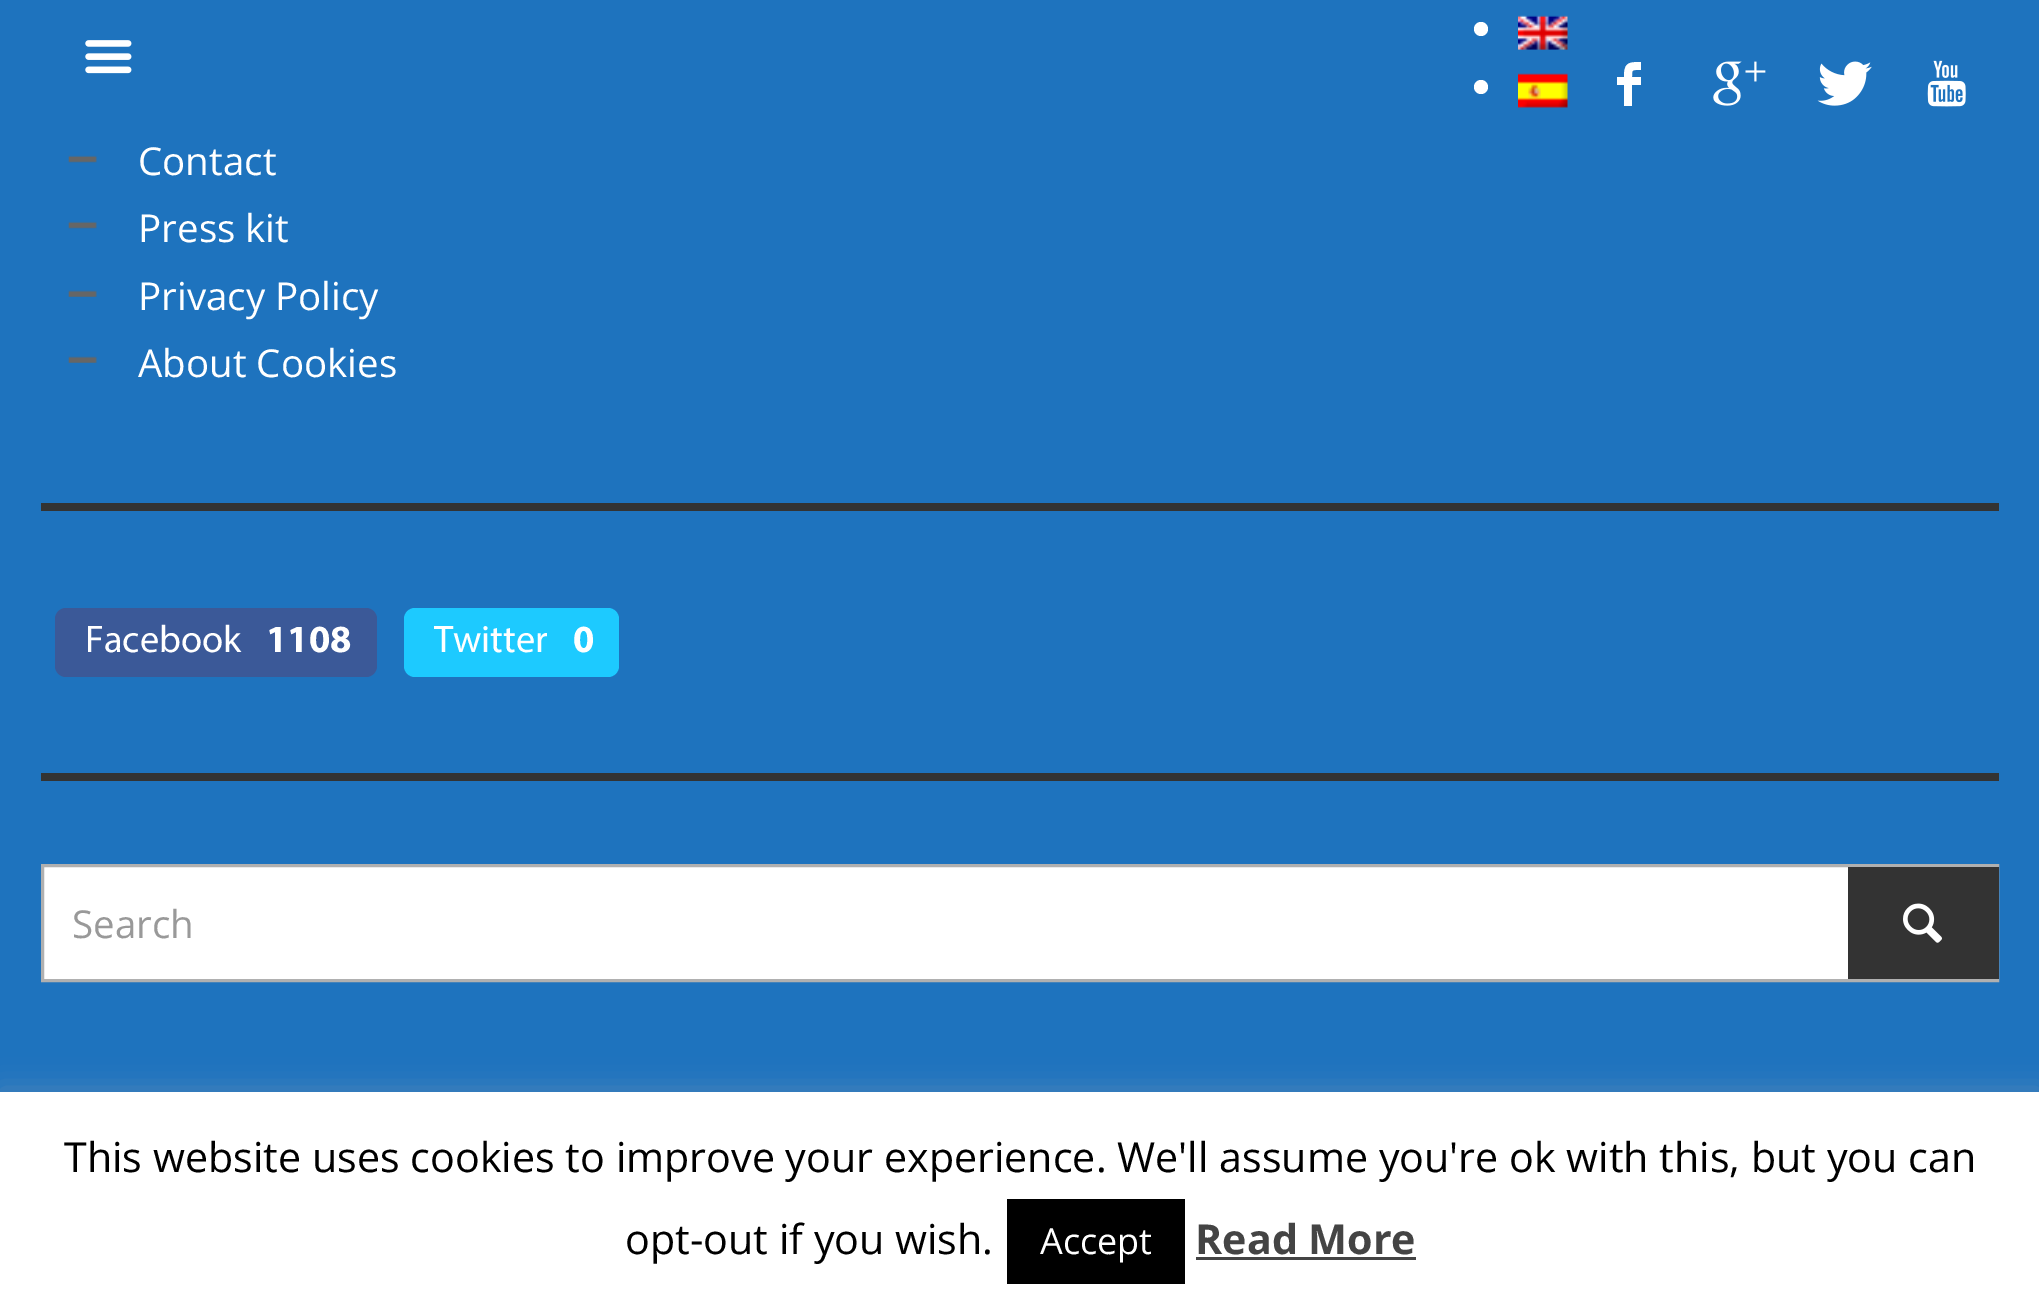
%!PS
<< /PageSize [2039 1315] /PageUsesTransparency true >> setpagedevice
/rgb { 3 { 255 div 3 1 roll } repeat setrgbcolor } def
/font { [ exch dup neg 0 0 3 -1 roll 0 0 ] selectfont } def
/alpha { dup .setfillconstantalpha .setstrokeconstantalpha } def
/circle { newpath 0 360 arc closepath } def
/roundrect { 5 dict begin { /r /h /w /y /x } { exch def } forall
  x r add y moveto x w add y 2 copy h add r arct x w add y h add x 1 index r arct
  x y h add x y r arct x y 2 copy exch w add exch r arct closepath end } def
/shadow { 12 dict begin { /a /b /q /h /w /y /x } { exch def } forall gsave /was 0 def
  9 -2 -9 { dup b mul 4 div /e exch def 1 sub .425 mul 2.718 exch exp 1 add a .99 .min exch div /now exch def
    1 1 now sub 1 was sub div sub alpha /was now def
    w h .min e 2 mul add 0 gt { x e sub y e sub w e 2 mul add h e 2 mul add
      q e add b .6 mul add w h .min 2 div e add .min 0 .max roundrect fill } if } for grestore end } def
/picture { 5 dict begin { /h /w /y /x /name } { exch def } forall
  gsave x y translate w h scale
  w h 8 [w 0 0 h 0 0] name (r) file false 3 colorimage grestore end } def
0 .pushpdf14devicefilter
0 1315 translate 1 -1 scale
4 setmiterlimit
30 115 190 rgb
0 0 2039 1315 rectfill
(img/1.rgb) 85 40 47 34 picture
255 255 255 rgb
1481 29 7 circle fill
(img/2.rgb) 1518 15 50 35 picture
1481 87 7 circle fill
(img/3.rgb) 1518 73 50 35 picture
1617 85 moveto 1617 77 lineto 1624 77 lineto 1624 63 1628 62 1641 62 curveto 1641 70 lineto 1632 70 1632 69 1632 77 curveto 1641 77 lineto 1641 85 lineto 1632 85 lineto 1632 106 lineto 1624 106 lineto 1624 85 lineto closepath fill
(img/4.rgb) 1713 61 53 45 picture
(img/5.rgb) 1817 61 55 45 picture
(img/6.rgb) 1927 60 39 47 picture
(img/7.rgb) 68 155 29 8 picture
(img/7.rgb) 68 221 29 8 picture
(img/8.rgb) 68 290 29 7 picture
(img/8.rgb) 68 356 29 7 picture
51 51 51 rgb
41 503 1958 8 rectfill
59 89 152 rgb
55 608 322 69 11 roundrect fill
29 202 255 rgb
404 608 215 69 11 roundrect fill
51 51 51 rgb
41 773 1958 8 rectfill
255 255 255 rgb
44 867 1804 112 rectfill
176 176 176 rgb
3 setlinewidth
42.5 865.5 1955 115 rectstroke
51 51 51 rgb
1848 867 151 112 rectfill
(img/9.rgb) 1903 903 39 40 picture
172 171 171 rgb
0 1089 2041 226 0 14 0.3 shadow
[
  [0 1092 2039 223 255 255 255]
  [1007 1199 178 85 0 0 0]
  [1196 1257 220 3 68 68 68]
] { aload pop rgb rectfill } forall
/OpenSans-Regular 38.5 font
255 255 255 rgb
[
  [(Contact) 138 175]
  [(Press kit) 138 242]
  [(Privacy Policy) 138 310]
  [(About Cookies) 138 377]
] { aload pop moveto show } forall
/Myriad-Regular 38.5 font
85 652 moveto (Facebook) show
/Myriad-Bold 38.5 font
266 652 moveto (1108) show
/Myriad-Regular 38.5 font
434 652 moveto (Twitter) show
/Myriad-Bold 38.5 font
573 652 moveto (0) show
/OpenSans-Regular 38.5 font
153 153 153 rgb
72 938 moveto (Search) show
/OpenSans-Regular 41.25 font
0 0 0 rgb
64 1172 moveto (This website uses cookies to improve your experience. We'll assume you're ok with this, but you can) show
625 1254 moveto (opt-out if you wish.) show
/OpenSans-Regular 36 font
255 255 255 rgb
1040 1254 moveto (Accept) show
/OpenSans-Bold 41.25 font
68 68 68 rgb
1195 1254 moveto (Read More) show
.poppdf14devicefilter showpage
